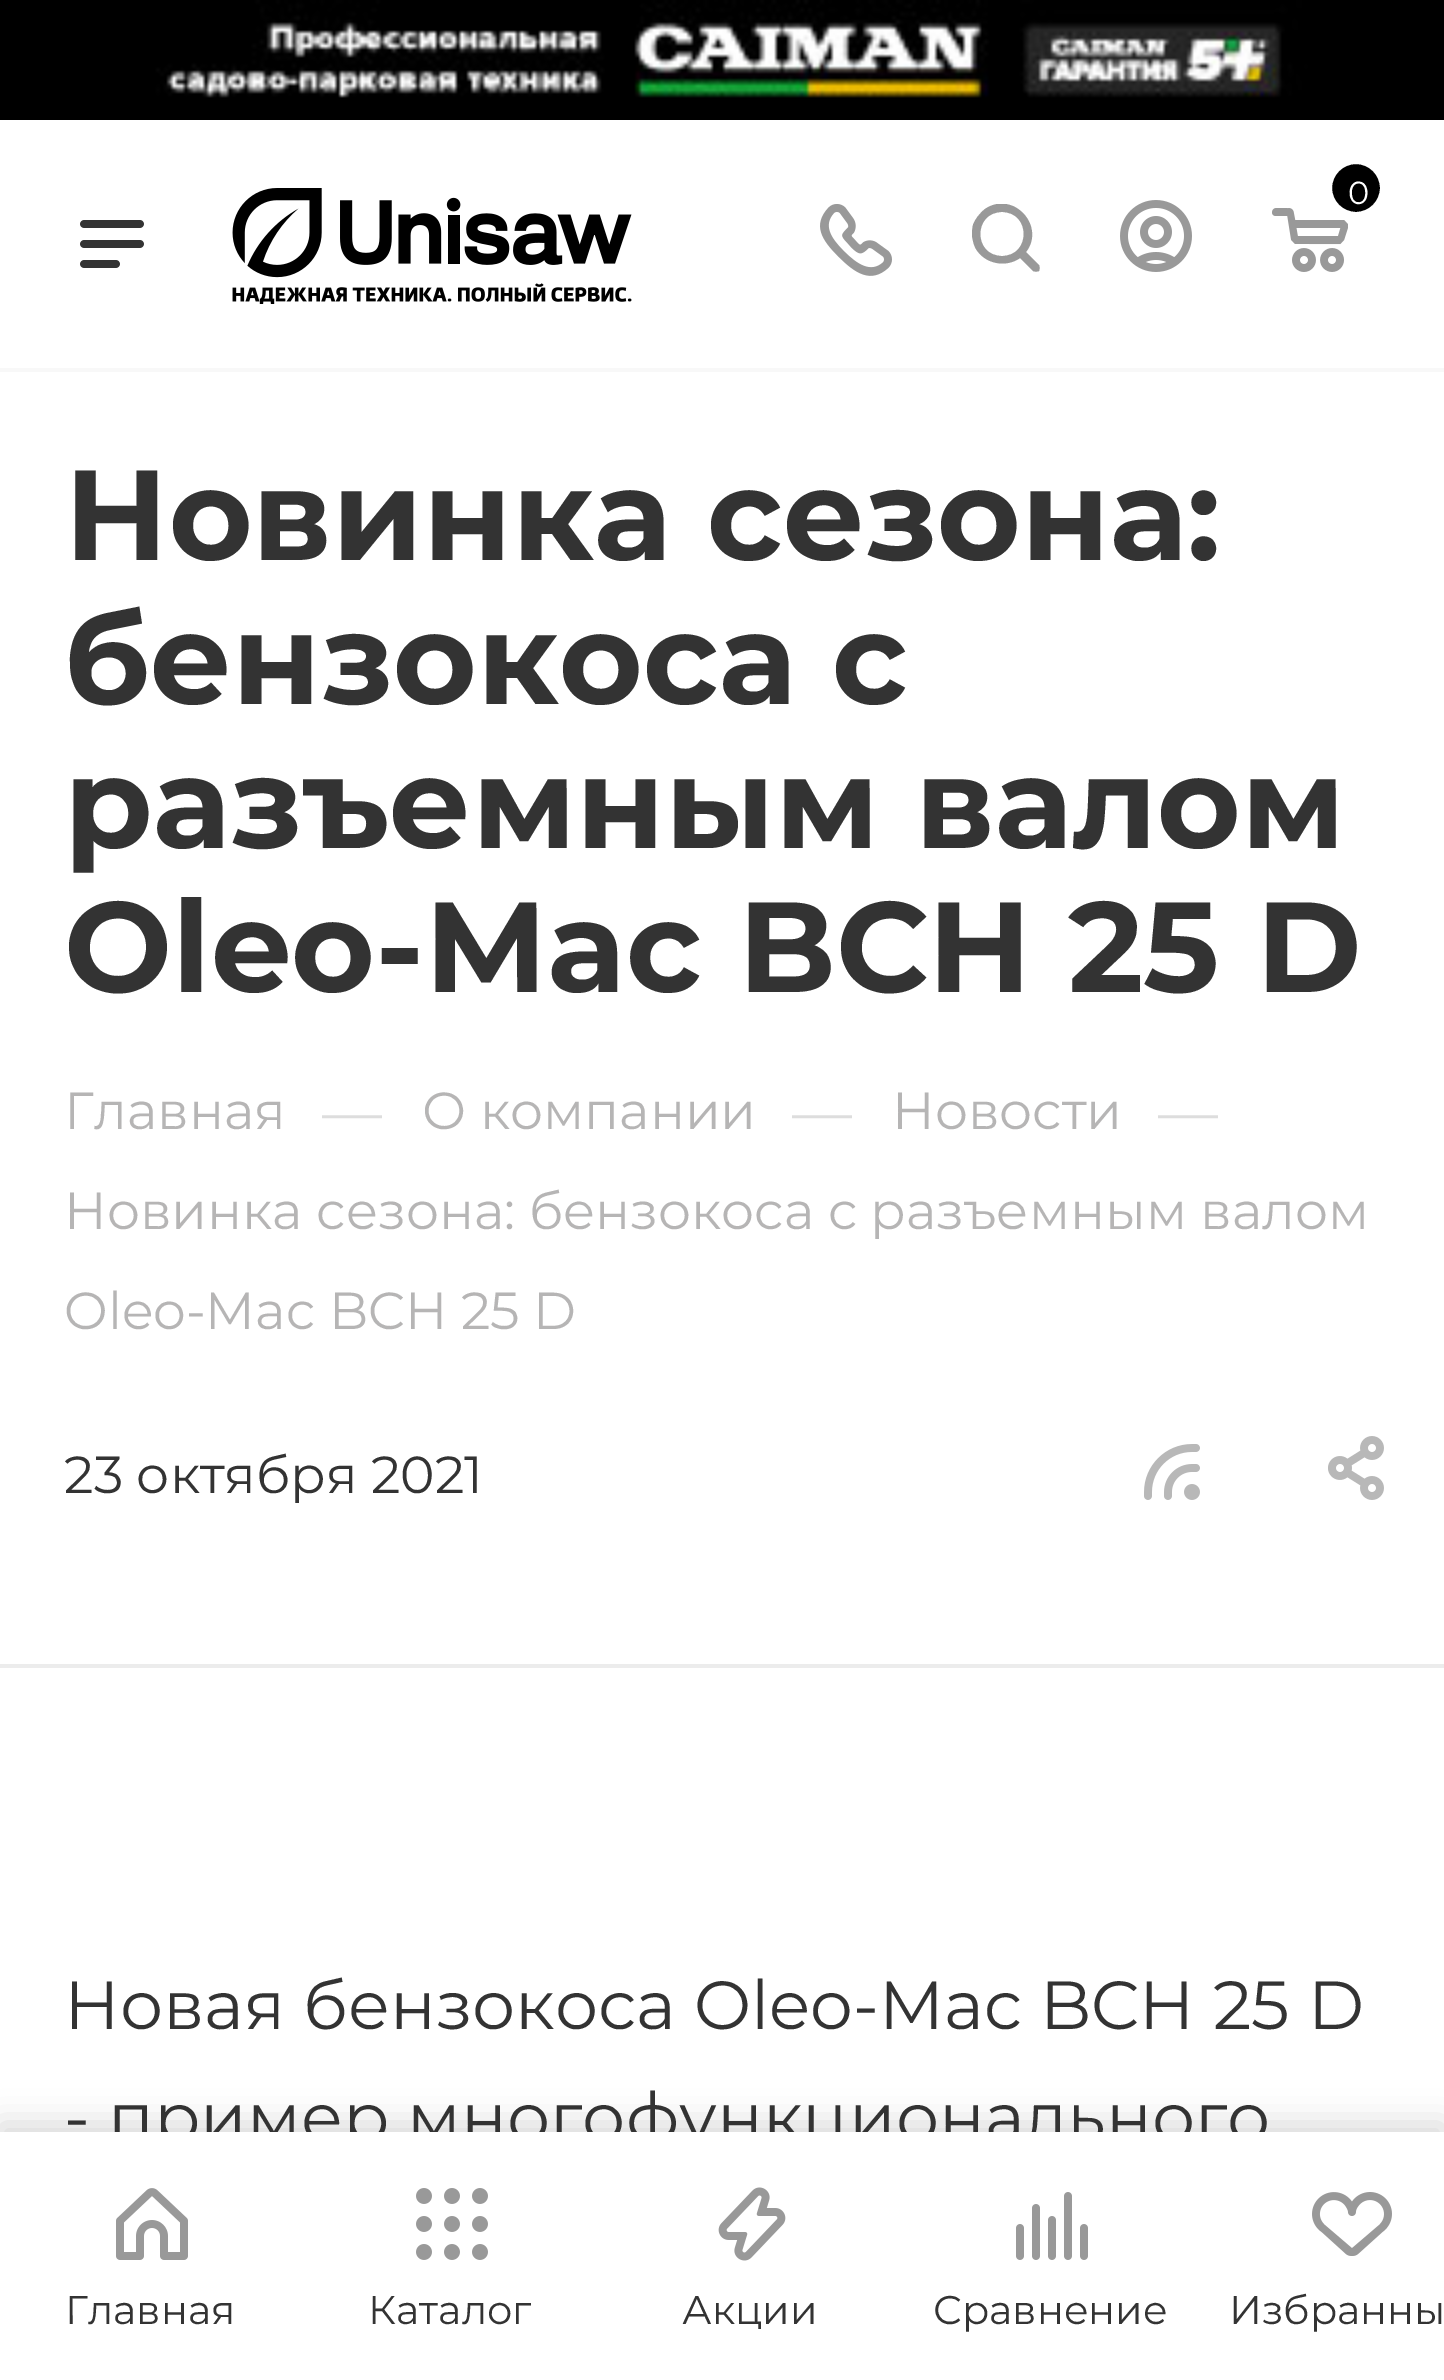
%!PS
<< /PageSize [1444 2380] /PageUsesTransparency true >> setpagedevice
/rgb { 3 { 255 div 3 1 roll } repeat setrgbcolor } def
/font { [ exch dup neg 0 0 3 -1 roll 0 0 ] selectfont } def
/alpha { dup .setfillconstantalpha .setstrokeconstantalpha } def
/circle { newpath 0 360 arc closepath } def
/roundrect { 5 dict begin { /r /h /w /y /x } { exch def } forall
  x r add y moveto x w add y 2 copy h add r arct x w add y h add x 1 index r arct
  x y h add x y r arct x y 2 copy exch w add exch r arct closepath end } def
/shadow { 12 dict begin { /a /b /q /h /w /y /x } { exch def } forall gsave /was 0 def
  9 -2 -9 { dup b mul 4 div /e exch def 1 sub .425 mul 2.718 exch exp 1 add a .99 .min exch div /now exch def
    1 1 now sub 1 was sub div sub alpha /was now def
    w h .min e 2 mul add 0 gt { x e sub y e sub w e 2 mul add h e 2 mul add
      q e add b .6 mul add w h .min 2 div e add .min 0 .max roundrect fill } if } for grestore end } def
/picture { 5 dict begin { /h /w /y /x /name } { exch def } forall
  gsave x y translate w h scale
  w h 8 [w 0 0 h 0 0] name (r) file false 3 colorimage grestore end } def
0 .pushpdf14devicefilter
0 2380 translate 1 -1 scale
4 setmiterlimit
255 255 255 rgb
0 0 1444 2380 rectfill
(img/1.rgb) 0 0 1444 120 picture
248 248 248 rgb
0 368 1444 4 rectfill
(img/2.rgb) 80 220 64 48 picture
(img/3.rgb) 232 188 400 116 picture
(img/4.rgb) 1272 208 76 64 picture
0 0 0 rgb
1356 188 28 circle gsave fill grestore
255 255 255 rgb
8 setlinewidth
stroke
(img/5.rgb) 820 204 72 72 picture
gsave
972 204 68 68 rectclip
153 153 153 rgb
1039 271 moveto 1037 272 1035 272 1033 271 curveto 1020 258 lineto 1006 268 985 264 976 249 curveto 972 242 971 233 973 225 curveto 975 219 980 213 985 209 curveto 1013 190 1046 226 1026 252 curveto 1039 265 lineto 1040 267 1040 269 1039 271 curveto closepath 1002 212 moveto 973 212 973 256 1002 256 curveto 1031 256 1031 212 1002 212 curveto closepath eofill
grestore
(img/6.rgb) 1120 200 72 72 picture
(img/7.rgb) 1144 1444 56 56 picture
(img/8.rgb) 1328 1436 56 64 picture
236 236 236 rgb
0 1664 1444 4 rectfill
0 0 0 rgb
0 2124 1444 248 0 16 0.15 shadow
/Montserrat-Regular 32 font
255 255 255 rgb
1348 204 moveto (0) show
/Montserrat-Bold 128 font
51 51 51 rgb
[
  [(Новинка сезона:) 64 560]
  [(бензокоса с) 64 704]
  [(разъемным валом) 64 848]
  [(Oleo-Mac BCH 25 D) 64 992]
] { aload pop moveto show } forall
/Montserrat-Regular 52 font
182 181 181 rgb
64 1129 moveto (Главная) show
/Montserrat-Regular 60 font
221 221 221 rgb
322 1133 moveto (—) show
/Montserrat-Regular 52 font
182 181 181 rgb
422 1129 moveto (О компании) show
/Montserrat-Regular 60 font
221 221 221 rgb
792 1133 moveto (—) show
/Montserrat-Regular 52 font
182 181 181 rgb
892 1129 moveto (Новости) show
/Montserrat-Regular 60 font
221 221 221 rgb
1158 1133 moveto (—) show
/Montserrat-Regular 52 font
182 181 181 rgb
64 1229 moveto (Новинка сезона: бензокоса с разъемным валом) show
64 1329 moveto (Oleo-Mac BCH 25 D) show
51 51 51 rgb
64 1493 moveto (23 октября 2021) show
/Montserrat-Regular 68 font
64 2029 moveto (Новая бензокоса Oleo-Mac BCH 25 D) show
64 2141 moveto (- пример многофункционального) show
255 255 255 rgb
0 2132 1444 248 rectfill
(img/9.rgb) 116 2188 72 72 picture
/Montserrat-Regular 40 font
51 51 51 rgb
65 2324 moveto (Главная) show
(img/10.rgb) 416 2188 72 72 picture
368 2324 moveto (Каталог) show
(img/11.rgb) 718 2187 68 74 picture
682 2324 moveto (Акции) show
(img/12.rgb) 1016 2192 72 68 picture
933 2324 moveto (Сравнение) show
(img/13.rgb) 1312 2192 80 64 picture
1229 2324 moveto (Избранны) show
.poppdf14devicefilter showpage
